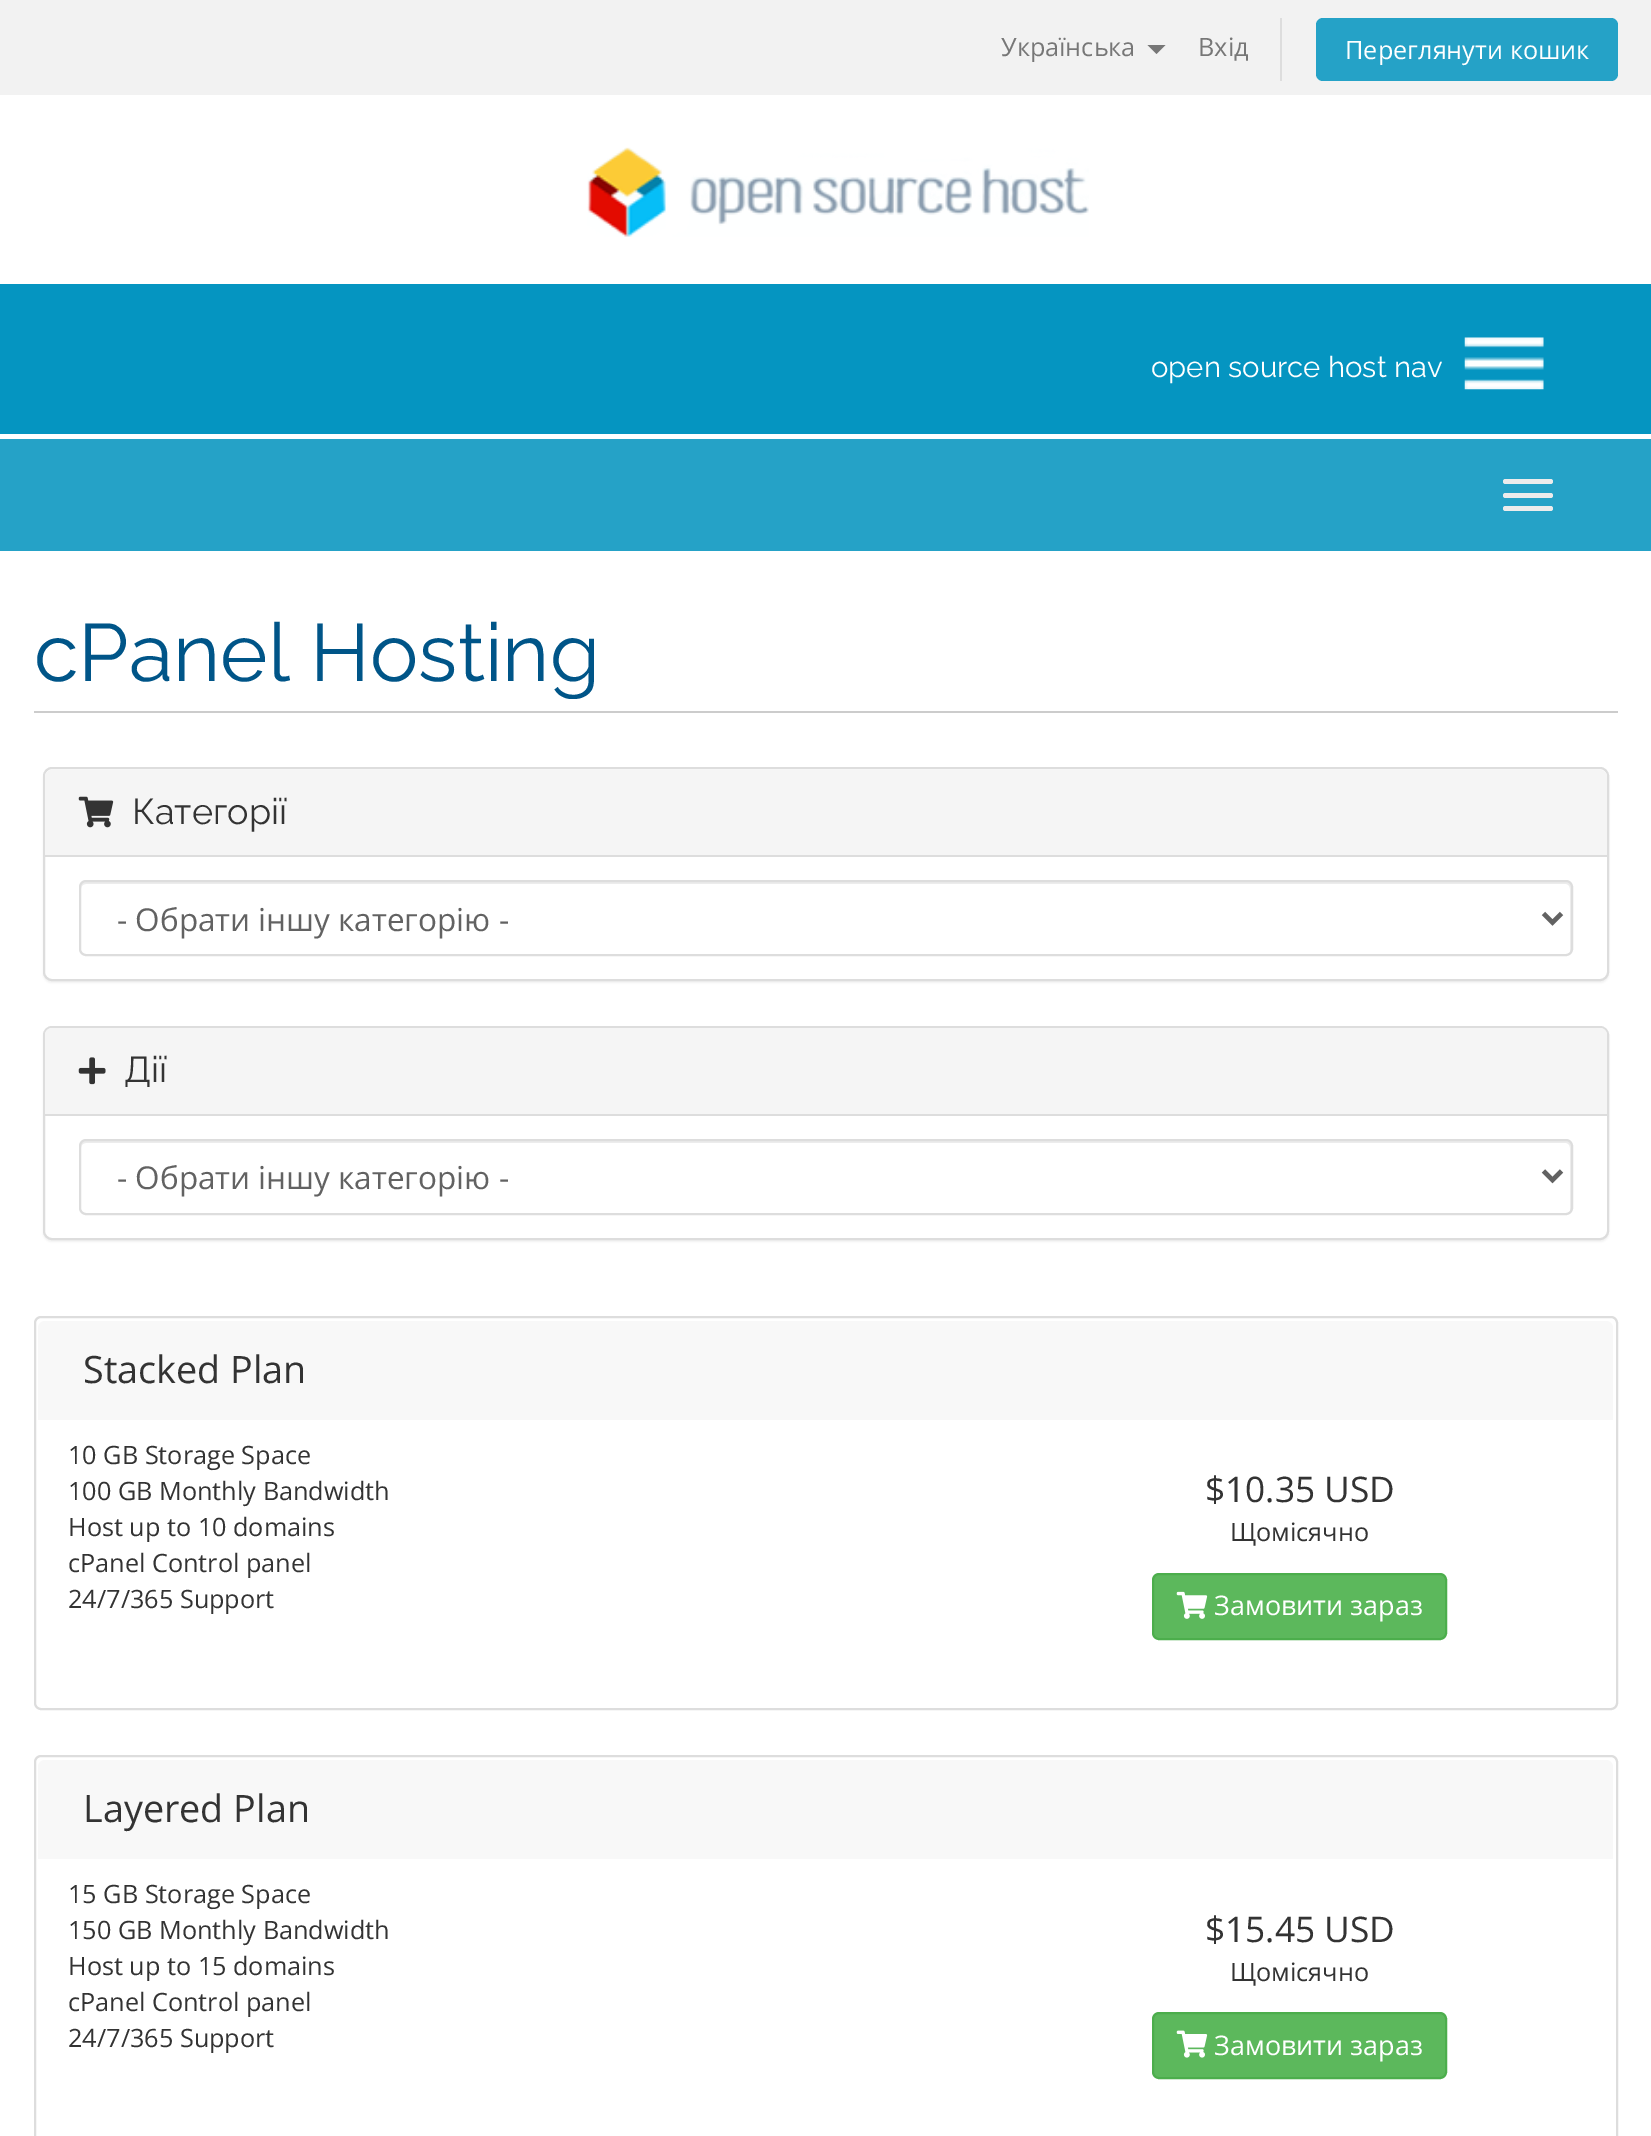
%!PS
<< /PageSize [1651 2136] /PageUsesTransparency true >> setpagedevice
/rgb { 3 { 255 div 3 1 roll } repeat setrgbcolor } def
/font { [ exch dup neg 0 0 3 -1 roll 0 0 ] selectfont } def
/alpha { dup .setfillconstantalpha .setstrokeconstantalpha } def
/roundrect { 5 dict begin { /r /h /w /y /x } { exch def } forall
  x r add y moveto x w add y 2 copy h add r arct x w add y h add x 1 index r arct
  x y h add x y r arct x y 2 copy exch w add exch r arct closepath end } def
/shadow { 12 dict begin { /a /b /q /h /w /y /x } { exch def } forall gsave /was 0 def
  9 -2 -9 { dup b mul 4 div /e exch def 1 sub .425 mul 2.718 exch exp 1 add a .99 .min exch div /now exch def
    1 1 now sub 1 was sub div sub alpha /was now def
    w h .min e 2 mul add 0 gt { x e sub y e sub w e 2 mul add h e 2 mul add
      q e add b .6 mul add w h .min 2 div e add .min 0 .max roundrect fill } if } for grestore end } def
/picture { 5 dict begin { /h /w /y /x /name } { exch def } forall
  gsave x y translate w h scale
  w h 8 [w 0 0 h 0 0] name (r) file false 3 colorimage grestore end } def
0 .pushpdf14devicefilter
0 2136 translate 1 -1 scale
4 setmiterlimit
242 242 242 rgb
0 0 1651 2136 rectfill
119 119 119 rgb
1147.5 45 moveto 1165.5 45 lineto 1156.5 54 lineto closepath fill
221 221 221 rgb
1280 18 2 63 rectfill
37 162 199 rgb
1316 18 302 63 7 roundrect fill
255 255 255 rgb
0 95 1651 344 rectfill
(img/1.rgb) 587 147 502 90 picture
5 149 193 rgb
0 284 1651 150 rectfill
(img/2.rgb) 1464 337 80 53 picture
37 162 199 rgb
0 439 1651 112 rectfill
236 236 236 rgb
1503 479 50 5 2.5 roundrect fill
1503 493 50 5 2.5 roundrect fill
1503 506 50 5 2.5 roundrect fill
255 255 255 rgb
0 551 1651 1585 rectfill
204 204 204 rgb
34 711 1584 2 rectfill
0 0 0 rgb
43 770 1566 213 9 1 0.05 shadow
255 255 255 rgb
44 768 1564 212 8 roundrect gsave fill grestore
221 221 221 rgb
2 setlinewidth
stroke
245 245 245 rgb
52 770 moveto 1600 770 lineto 1604 770 1607 773 1607 777 curveto 1607 857 lineto 45 857 lineto 45 777 lineto 45 773 48 770 52 770 curveto closepath fill
221 221 221 rgb
45 855 1562 2 rectfill
(img/3.rgb) 78 796 36 32 picture
236 236 236 rgb
86 884 moveto 1566 884 lineto 1568 884 1570 886 1570 889 curveto 1570 952 lineto 1571 951 1571 950 1571 949 curveto 1571 887 lineto 1571 884 1569 882 1566 882 curveto 86 882 lineto 83 882 81 884 81 887 curveto 81 889 lineto 81 886 83 884 86 884 curveto closepath fill
221 221 221 rgb
80 881 1492 74 6 roundrect stroke
98 98 98 rgb
4.5 setlinewidth
1543.5 913.5 moveto 1552.5 922.5 lineto 1561.5 913.5 lineto stroke
0 0 0 rgb
43 1028 1566 214 9 1 0.05 shadow
255 255 255 rgb
44 1027 1564 212 8 roundrect gsave fill grestore
221 221 221 rgb
2 setlinewidth
stroke
245 245 245 rgb
52 1028 moveto 1600 1028 lineto 1604 1028 1607 1031 1607 1035 curveto 1607 1116 lineto 45 1116 lineto 45 1035 lineto 45 1031 48 1028 52 1028 curveto closepath fill
221 221 221 rgb
45 1114 1562 2 rectfill
(img/4.rgb) 78 1057 28 28 picture
236 236 236 rgb
86 1143 moveto 1566 1143 lineto 1568 1143 1570 1145 1570 1148 curveto 1570 1211 lineto 1571 1210 1571 1209 1571 1208 curveto 1571 1146 lineto 1571 1143 1569 1141 1566 1141 curveto 86 1141 lineto 83 1141 81 1143 81 1146 curveto 81 1148 lineto 81 1145 83 1143 86 1143 curveto closepath fill
221 221 221 rgb
80 1140 1492 74 6 roundrect stroke
98 98 98 rgb
4.5 setlinewidth
1543.5 1171 moveto 1552.5 1180 lineto 1561.5 1171 lineto stroke
221 221 221 rgb
2 setlinewidth
35 1317 1582 392 6 roundrect stroke
248 248 248 rgb
45 1321 moveto 1606 1321 lineto 1610 1321 1613 1324 1613 1328 curveto 1613 1420 lineto 38 1420 lineto 38 1328 lineto 38 1324 41 1321 45 1321 curveto closepath fill
92 184 92 rgb
1153 1574 293 65 6 roundrect gsave fill grestore
76 174 76 rgb
stroke
(img/5.rgb) 1176 1591 32 28 picture
221 221 221 rgb
35 1756 1582 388 6 roundrect stroke
248 248 248 rgb
45 1760 moveto 1606 1760 lineto 1610 1760 1613 1763 1613 1767 curveto 1613 1859 lineto 38 1859 lineto 38 1767 lineto 38 1763 41 1760 45 1760 curveto closepath fill
92 184 92 rgb
1153 2013 293 65 6 roundrect gsave fill grestore
76 174 76 rgb
stroke
(img/6.rgb) 1176 2030 32 28 picture
/OpenSans-Regular 25.25 font
119 119 119 rgb
1001 56 moveto (Українська) show
1198 56 moveto (Вхід) show
255 255 255 rgb
1345 59 moveto (Переглянути кошик) show
/Raleway-Regular 29.25 font
1151 377 moveto (open source host nav) show
/Raleway-Regular 81 font
0 85 136 rgb
34 681 moveto (cPanel Hosting) show
/Raleway-Regular 36 font
51 51 51 rgb
132 824 moveto (Категорії) show
/OpenSans-Regular 31.5 font
98 98 98 rgb
117 931 moveto (- Обрати іншу категорію -) show
/Raleway-Regular 36 font
51 51 51 rgb
124 1082 moveto (Дії) show
/OpenSans-Regular 31.5 font
98 98 98 rgb
117 1189 moveto (- Обрати іншу категорію -) show
/OpenSans-Regular 37.75 font
51 51 51 rgb
83 1383 moveto (Stacked Plan) show
/OpenSans-Regular 25.25 font
[
  [(10 GB Storage Space) 68 1464]
  [(100 GB Monthly Bandwidth) 68 1500]
  [(Host up to 10 domains) 68 1536]
  [(cPanel Control panel) 68 1572]
  [(24/7/365 Support) 68 1608]
] { aload pop moveto show } forall
/OpenSans-Regular 35.25 font
1205 1502 moveto ($10.35 USD) show
/OpenSans-Regular 25.25 font
1230 1541 moveto (Щомісячно) show
/OpenSans-Regular 27 font
255 255 255 rgb
1214 1615 moveto (Замовити зараз) show
/OpenSans-Regular 37.75 font
51 51 51 rgb
83 1822 moveto (Layered Plan) show
/OpenSans-Regular 25.25 font
[
  [(15 GB Storage Space) 68 1903]
  [(150 GB Monthly Bandwidth) 68 1939]
  [(Host up to 15 domains) 68 1975]
  [(cPanel Control panel) 68 2011]
  [(24/7/365 Support) 68 2047]
] { aload pop moveto show } forall
/OpenSans-Regular 35.25 font
1205 1942 moveto ($15.45 USD) show
/OpenSans-Regular 25.25 font
1230 1981 moveto (Щомісячно) show
/OpenSans-Regular 27 font
255 255 255 rgb
1214 2055 moveto (Замовити зараз) show
.poppdf14devicefilter showpage
